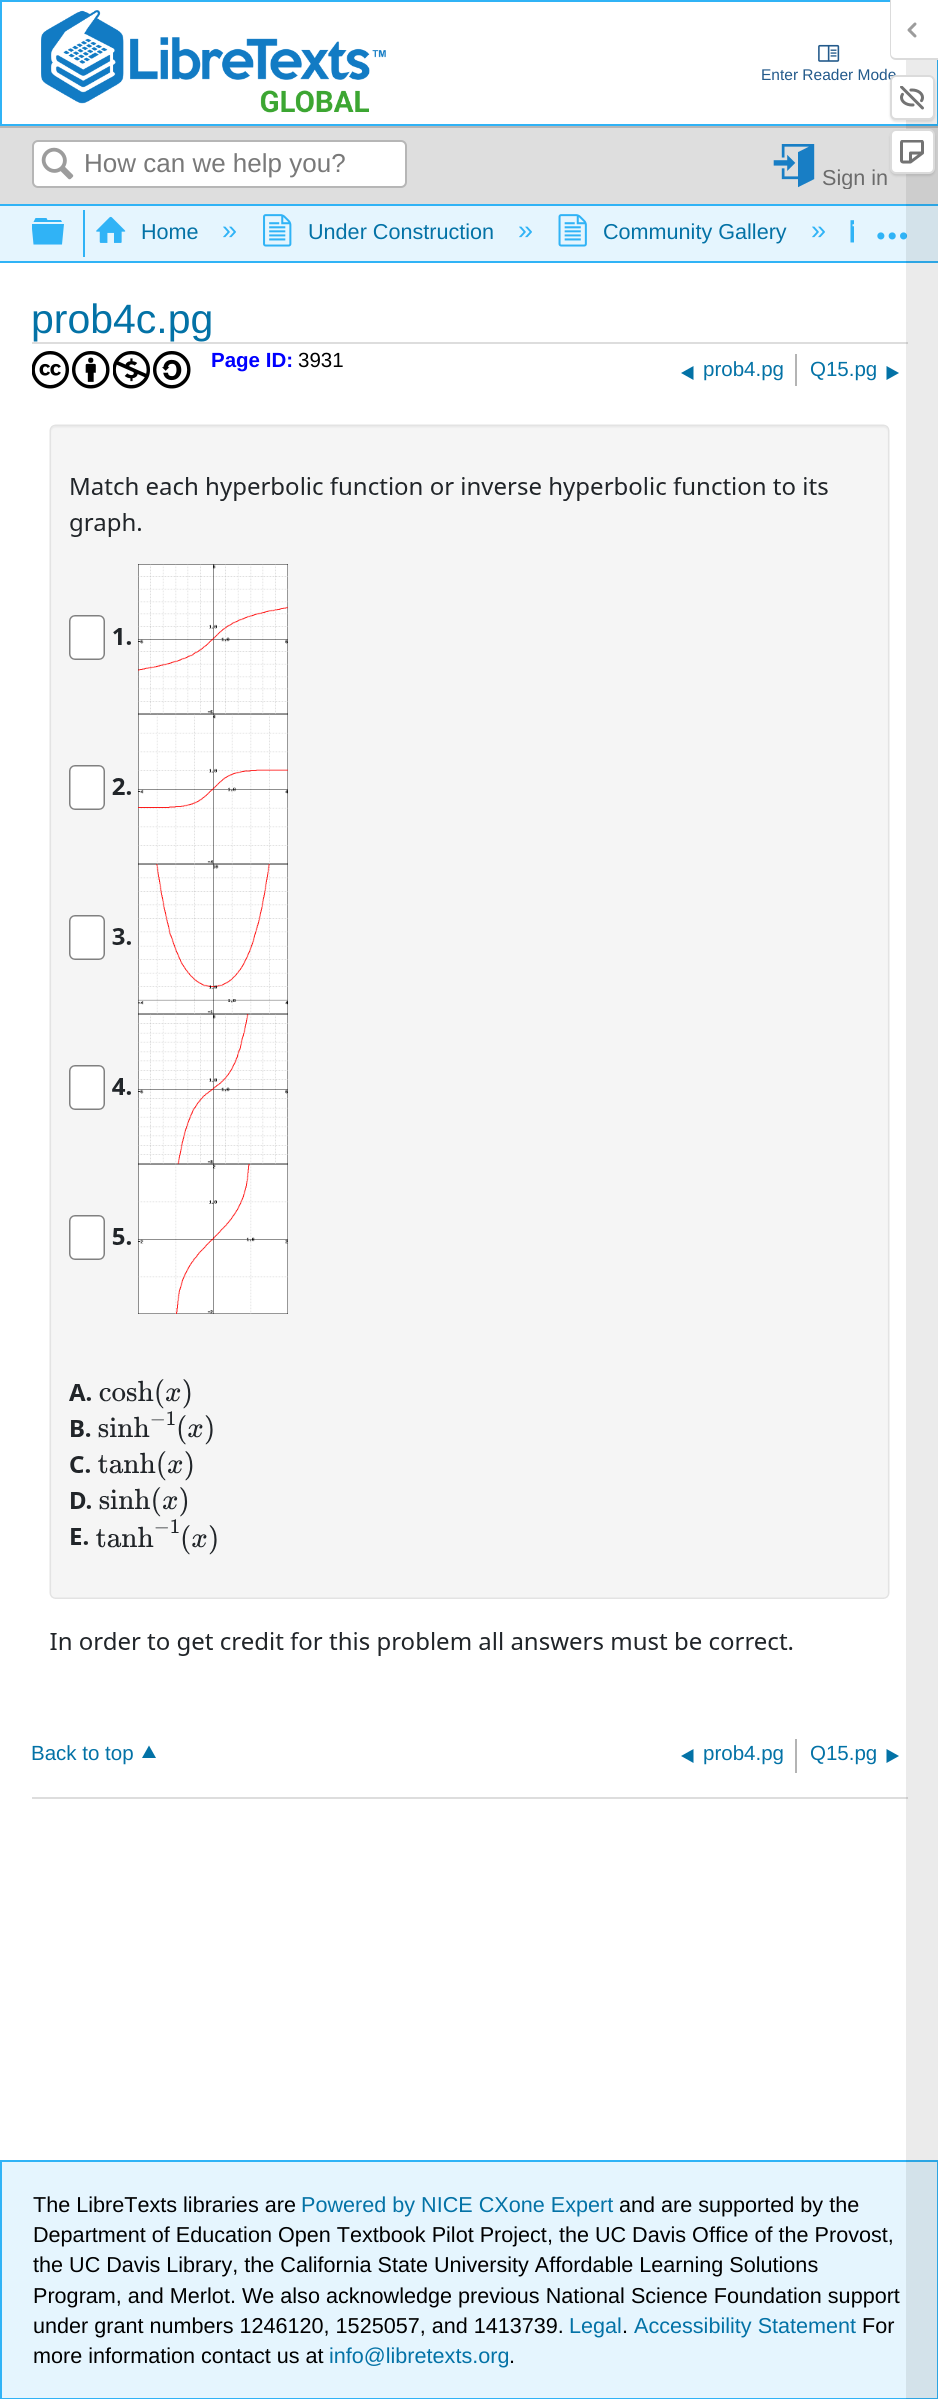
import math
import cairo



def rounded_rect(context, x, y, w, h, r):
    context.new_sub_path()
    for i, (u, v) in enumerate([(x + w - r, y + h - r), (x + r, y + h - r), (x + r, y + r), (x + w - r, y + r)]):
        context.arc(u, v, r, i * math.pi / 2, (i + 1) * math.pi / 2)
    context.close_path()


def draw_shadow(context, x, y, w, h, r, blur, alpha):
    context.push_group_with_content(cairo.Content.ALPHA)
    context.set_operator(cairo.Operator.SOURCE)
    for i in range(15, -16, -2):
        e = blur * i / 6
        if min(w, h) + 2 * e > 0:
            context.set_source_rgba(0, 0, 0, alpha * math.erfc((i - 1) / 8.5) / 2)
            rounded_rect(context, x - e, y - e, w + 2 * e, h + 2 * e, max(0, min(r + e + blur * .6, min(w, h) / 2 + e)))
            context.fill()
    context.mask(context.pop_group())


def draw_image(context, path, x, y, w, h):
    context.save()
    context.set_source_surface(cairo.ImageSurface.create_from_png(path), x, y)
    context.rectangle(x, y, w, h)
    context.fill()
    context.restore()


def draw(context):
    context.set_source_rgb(1, 1, 1)
    context.paint()
    context.rectangle(1, 1, 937, 124)
    context.set_source_rgb(48 / 255, 179 / 255, 246 / 255)
    context.stroke()
    draw_image(context, "images/1.png", 41, 10, 345, 103)
    draw_image(context, "images/2.png", 818, 44, 22, 18)
    context.set_source_rgb(222 / 255, 222 / 255, 222 / 255)
    context.rectangle(0, 128, 938, 76)
    context.fill()
    context.set_source_rgb(182 / 255, 182 / 255, 182 / 255)
    context.rectangle(0, 126, 938, 2)
    context.fill()
    context.set_source_rgb(1, 1, 1)
    rounded_rect(context, 33, 141, 373, 46, 5)
    context.fill_preserve()
    context.set_source_rgb(182 / 255, 182 / 255, 182 / 255)
    context.stroke()
    draw_image(context, "images/3.png", 41, 147, 33, 33)
    draw_image(context, "images/4.png", 773, 144, 42, 44)
    context.set_source_rgb(229 / 255, 245 / 255, 254 / 255)
    context.rectangle(0, 206, 938, 55)
    context.fill()
    context.set_source_rgb(48 / 255, 179 / 255, 246 / 255)
    context.rectangle(0, 204, 938, 2)
    context.fill()
    context.rectangle(0, 261, 938, 2)
    context.fill()
    context.set_fill_rule(cairo.FillRule.EVEN_ODD)
    context.new_path()
    context.move_to(32, 229)
    context.line_to(32, 224)
    context.line_to(64, 224)
    context.line_to(62, 244.5)
    context.line_to(33.5, 244.5)
    context.close_path()
    context.move_to(61, 220)
    context.line_to(47.5, 220)
    context.line_to(46.5, 218)
    context.line_to(35.5, 218)
    context.line_to(33.5, 222)
    context.line_to(62, 222)
    context.close_path()
    context.fill()
    context.rectangle(83, 210, 2, 47)
    context.fill()
    draw_image(context, "images/5.png", 96, 216, 30, 27)
    draw_image(context, "images/6.png", 263, 214, 29, 33)
    draw_image(context, "images/7.png", 558, 214, 29, 33)
    draw_image(context, "images/8.png", 850, 220, 4, 23)
    draw_image(context, "images/9.png", 877, 232, 31, 8)
    context.set_source_rgb(221 / 255, 221 / 255, 221 / 255)
    context.rectangle(32, 342, 876, 2)
    context.fill()
    draw_image(context, "images/10.png", 32, 351, 37, 38)
    draw_image(context, "images/11.png", 72, 351, 38, 38)
    draw_image(context, "images/12.png", 113, 351, 37, 38)
    draw_image(context, "images/13.png", 153, 351, 38, 38)
    context.set_source_rgb(180 / 255, 180 / 255, 180 / 255)
    context.rectangle(795, 354, 2, 32)
    context.fill()
    context.set_source_rgb(3 / 255, 114 / 255, 166 / 255)
    context.set_fill_rule(cairo.FillRule.WINDING)
    context.new_path()
    context.move_to(693.5, 366)
    context.line_to(693.5, 380)
    context.line_to(681, 373)
    context.close_path()
    context.fill()
    context.new_path()
    context.move_to(886.5, 366)
    context.line_to(886.5, 380)
    context.line_to(899, 373)
    context.close_path()
    context.fill()
    draw_image(context, "images/14.png", 49, 424, 841, 1232)
    context.set_source_rgb(221 / 255, 221 / 255, 221 / 255)
    context.rectangle(32, 1797, 876, 2)
    context.fill()
    context.set_source_rgb(3 / 255, 114 / 255, 166 / 255)
    context.new_path()
    context.move_to(142, 1758)
    context.line_to(156, 1758)
    context.line_to(149, 1745.5)
    context.close_path()
    context.fill()
    context.set_source_rgb(180 / 255, 180 / 255, 180 / 255)
    context.rectangle(795, 1739, 2, 34)
    context.fill()
    context.set_source_rgb(3 / 255, 114 / 255, 166 / 255)
    context.new_path()
    context.move_to(693.5, 1749)
    context.line_to(693.5, 1763)
    context.line_to(681, 1756)
    context.close_path()
    context.fill()
    context.new_path()
    context.move_to(886.5, 1749)
    context.line_to(886.5, 1763)
    context.line_to(899, 1756)
    context.close_path()
    context.fill()
    context.set_source_rgb(229 / 255, 245 / 255, 254 / 255)
    context.rectangle(1, 2161, 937, 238)
    context.fill_preserve()
    context.set_source_rgb(48 / 255, 179 / 255, 246 / 255)
    context.stroke()
    context.set_source_rgba(0, 0, 0, 0.08)
    context.rectangle(906, 60, 32, 2339)
    context.fill()
    context.set_source_rgb(1, 1, 1)
    context.new_path()
    context.move_to(891, 0)
    context.line_to(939, 0)
    context.line_to(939, 59)
    context.line_to(896, 59)
    context.curve_to(893, 59, 891, 57, 891, 54)
    context.close_path()
    context.fill()
    context.set_source_rgb(219 / 255, 219 / 255, 219 / 255)
    context.set_fill_rule(cairo.FillRule.EVEN_ODD)
    context.new_path()
    context.move_to(890, 0)
    context.line_to(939, 0)
    context.line_to(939, 60)
    context.line_to(896, 60)
    context.curve_to(892, 60, 890, 57, 890, 54)
    context.close_path()
    context.move_to(891, 0)
    context.line_to(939, 0)
    context.line_to(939, 58)
    context.line_to(896, 58)
    context.curve_to(893, 58, 891, 56, 891, 54)
    context.close_path()
    context.fill()
    draw_image(context, "images/15.png", 907, 22, 10, 16)
    context.set_source_rgb(0, 0, 0)
    draw_shadow(context, 890, 77, 45, 45, 6, 1, 0.1)
    draw_shadow(context, 890, 131, 45, 45, 6, 1, 0.1)
    context.set_source_rgb(1, 1, 1)
    rounded_rect(context, 891, 130, 43, 43, 5)
    context.fill_preserve()
    context.set_source_rgb(219 / 255, 219 / 255, 219 / 255)
    context.stroke()
    draw_image(context, "images/17.png", 900, 140, 24, 24)
    context.select_font_face("Liberation Sans")
    context.set_font_size(15.5)
    context.set_source_rgb(35 / 255, 90 / 255, 139 / 255)
    context.move_to(761, 80)
    context.show_text("Enter Reader Mode")
    context.set_font_size(26)
    context.set_source_rgb(121 / 255, 121 / 255, 121 / 255)
    context.move_to(84, 172)
    context.show_text("How can we help you?")
    context.save()
    context.set_fill_rule(cairo.FillRule.WINDING)
    context.rectangle(771, 143, 126, 46)
    context.clip()
    context.set_font_size(21.6)
    context.set_source_rgb(107 / 255, 107 / 255, 107 / 255)
    context.move_to(822, 185)
    context.show_text("Sign in")
    context.restore()
    context.set_font_size(21.6)
    context.set_source_rgb(3 / 255, 114 / 255, 166 / 255)
    context.move_to(141, 239)
    context.show_text("Home")
    context.set_font_size(27)
    context.set_source_rgb(48 / 255, 179 / 255, 246 / 255)
    context.move_to(222, 239)
    context.show_text("»")
    context.set_font_size(21.6)
    context.set_source_rgb(3 / 255, 114 / 255, 166 / 255)
    context.move_to(308, 239)
    context.show_text("Under Construction")
    context.set_font_size(27)
    context.set_source_rgb(48 / 255, 179 / 255, 246 / 255)
    context.move_to(518, 239)
    context.show_text("»")
    context.set_font_size(21.6)
    context.set_source_rgb(3 / 255, 114 / 255, 166 / 255)
    context.move_to(603, 239)
    context.show_text("Community Gallery")
    context.set_font_size(27)
    context.set_source_rgb(48 / 255, 179 / 255, 246 / 255)
    context.move_to(811, 239)
    context.show_text("»")
    context.set_font_size(41)
    context.set_source_rgb(3 / 255, 114 / 255, 166 / 255)
    context.move_to(31, 333)
    context.show_text("prob4c.pg")
    context.select_font_face("Liberation Sans", cairo.FontSlant.NORMAL, cairo.FontWeight.BOLD)
    context.set_font_size(20.5)
    context.set_source_rgb(0, 0, 1)
    context.move_to(211, 367)
    context.show_text("Page ID:")
    context.select_font_face("Liberation Sans")
    context.set_source_rgb(0, 0, 0)
    context.move_to(298, 367)
    context.show_text("3931")
    context.set_source_rgb(3 / 255, 114 / 255, 166 / 255)
    context.move_to(703, 376)
    context.show_text("prob4.pg")
    context.move_to(810, 376)
    context.show_text("Q15.pg")
    context.move_to(31, 1760)
    context.show_text("Back to top")
    context.move_to(703, 1760)
    context.show_text("prob4.pg")
    context.move_to(810, 1760)
    context.show_text("Q15.pg")
    context.set_font_size(21.6)
    context.set_source_rgb(0, 0, 0)
    context.move_to(33, 2212)
    context.show_text("The LibreTexts libraries are")
    context.set_source_rgb(3 / 255, 114 / 255, 166 / 255)
    context.move_to(301, 2212)
    context.show_text("Powered by NICE CXone Expert")
    context.set_source_rgb(0, 0, 0)
    context.move_to(619, 2212)
    context.show_text("and are supported by the")
    context.move_to(33, 2242)
    context.show_text("Department of Education Open Textbook Pilot Project, the UC Davis Office of the Provost,")
    context.move_to(33, 2272)
    context.show_text("the UC Davis Library, the California State University Affordable Learning Solutions")
    context.move_to(33, 2303)
    context.show_text("Program, and Merlot. We also acknowledge previous National Science Foundation support")
    context.move_to(33, 2333)
    context.show_text("under grant numbers 1246120, 1525057, and 1413739.")
    context.set_source_rgb(3 / 255, 114 / 255, 166 / 255)
    context.move_to(569, 2333)
    context.show_text("Legal")
    context.set_source_rgb(0, 0, 0)
    context.move_to(622, 2333)
    context.show_text(".")
    context.set_source_rgb(3 / 255, 114 / 255, 166 / 255)
    context.move_to(634, 2333)
    context.show_text("Accessibility Statement")
    context.set_source_rgb(0, 0, 0)
    context.move_to(862, 2333)
    context.show_text("For")
    context.move_to(33, 2363)
    context.show_text("more information contact us at")
    context.set_source_rgb(3 / 255, 114 / 255, 166 / 255)
    context.move_to(329, 2363)
    context.show_text("info@libretexts.org")
    context.set_source_rgb(0, 0, 0)
    context.move_to(509, 2363)
    context.show_text(".")
    context.set_source_rgb(1, 1, 1)
    rounded_rect(context, 891, 76, 43, 43, 5)
    context.fill_preserve()
    context.set_source_rgb(219 / 255, 219 / 255, 219 / 255)
    context.stroke()
    draw_image(context, "images/16.png", 900, 86, 24, 24)


surface = cairo.ImageSurface(cairo.Format.RGB24, 938, 2399)
context = cairo.Context(surface)
options = cairo.FontOptions()
options.set_hint_metrics(cairo.HintMetrics.OFF)
options.set_hint_style(cairo.HintStyle.NONE)
context.set_font_options(options)
context.set_miter_limit(4)
draw(context)
surface.write_to_png("out.png")
